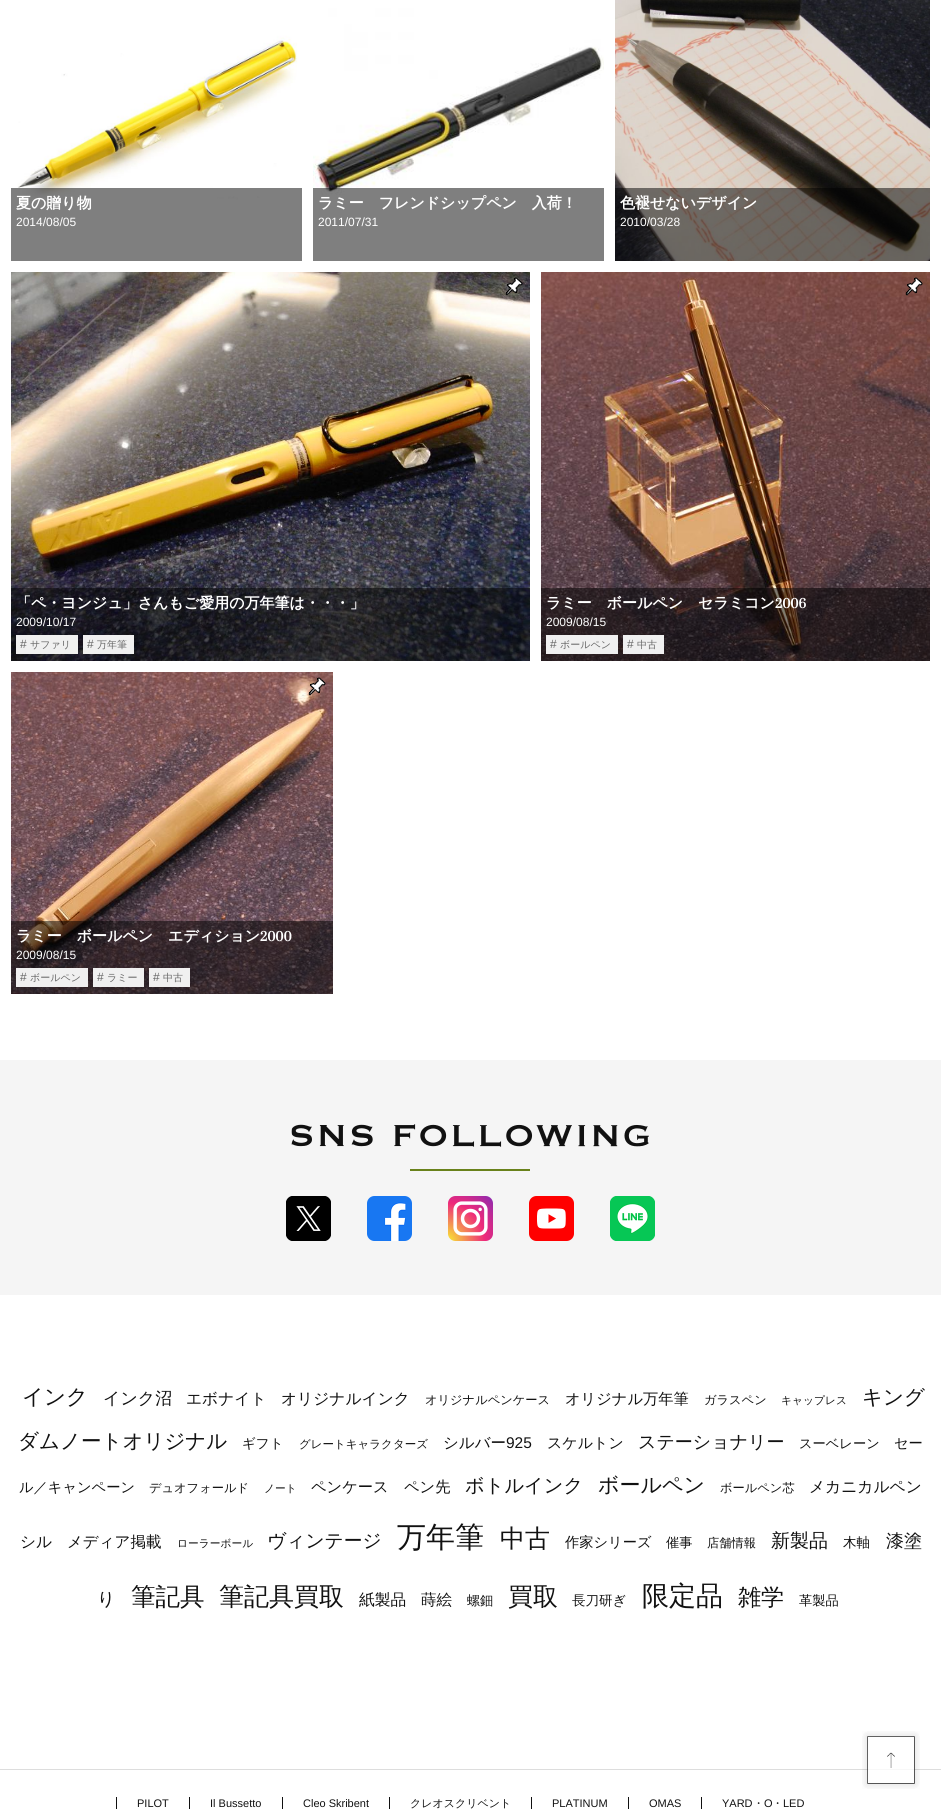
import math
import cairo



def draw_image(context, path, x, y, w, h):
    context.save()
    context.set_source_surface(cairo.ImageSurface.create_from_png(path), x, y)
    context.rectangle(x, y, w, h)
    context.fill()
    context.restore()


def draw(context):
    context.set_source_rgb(1, 1, 1)
    context.paint()
    draw_image(context, "images/1.png", 11, 0, 291, 261)
    context.set_source_rgba(0, 0, 0, 0.5)
    context.rectangle(11, 188, 291, 73)
    context.fill()
    draw_image(context, "images/2.png", 313, 0, 291, 261)
    context.rectangle(313, 188, 291, 73)
    context.fill()
    draw_image(context, "images/3.png", 615, 0, 315, 261)
    context.rectangle(615, 188, 315, 73)
    context.fill()
    draw_image(context, "images/4.png", 11, 272, 519, 389)
    draw_image(context, "images/5.png", 505, 277, 18, 19)
    context.rectangle(11, 588, 519, 73)
    context.fill()
    context.set_source_rgb(240 / 255, 240 / 255, 240 / 255)
    context.rectangle(16, 635, 62, 19)
    context.fill()
    context.rectangle(83, 635, 51, 19)
    context.fill()
    draw_image(context, "images/6.png", 541, 272, 389, 389)
    draw_image(context, "images/7.png", 905, 277, 18, 19)
    context.set_source_rgba(0, 0, 0, 0.5)
    context.rectangle(541, 588, 389, 73)
    context.fill()
    context.set_source_rgb(240 / 255, 240 / 255, 240 / 255)
    context.rectangle(546, 635, 72, 19)
    context.fill()
    context.rectangle(623, 635, 41, 19)
    context.fill()
    draw_image(context, "images/8.png", 11, 672, 322, 322)
    draw_image(context, "images/9.png", 308, 677, 18, 19)
    context.set_source_rgba(0, 0, 0, 0.5)
    context.rectangle(11, 921, 322, 73)
    context.fill()
    context.set_source_rgb(240 / 255, 240 / 255, 240 / 255)
    context.rectangle(16, 968, 72, 19)
    context.fill()
    context.rectangle(93, 968, 51, 19)
    context.fill()
    context.rectangle(149, 968, 41, 19)
    context.fill()
    context.set_source_rgb(245 / 255, 245 / 255, 245 / 255)
    context.rectangle(0, 1060, 941, 235)
    context.fill()
    draw_image(context, "images/10.png", 291, 1124, 358, 23)
    context.set_source_rgb(105 / 255, 130 / 255, 27 / 255)
    context.rectangle(410, 1169, 120, 2)
    context.fill()
    draw_image(context, "images/11.png", 286, 1196, 45, 45)
    draw_image(context, "images/12.png", 367, 1196, 45, 45)
    draw_image(context, "images/13.png", 448, 1196, 45, 45)
    draw_image(context, "images/14.png", 529, 1196, 45, 45)
    draw_image(context, "images/15.png", 610, 1196, 45, 45)
    context.set_source_rgb(221 / 255, 221 / 255, 221 / 255)
    context.rectangle(0, 1769, 941, 1)
    context.fill()
    context.set_source_rgb(17 / 255, 17 / 255, 17 / 255)
    context.rectangle(116, 1797, 1, 12)
    context.fill()
    context.rectangle(189, 1797, 1, 12)
    context.fill()
    context.rectangle(282, 1797, 1, 12)
    context.fill()
    context.rectangle(389, 1797, 1, 12)
    context.fill()
    context.rectangle(531, 1797, 1, 12)
    context.fill()
    context.rectangle(628, 1797, 1, 12)
    context.fill()
    context.rectangle(701, 1797, 1, 12)
    context.fill()
    draw_image(context, "images/16.png", 862, 1731, 58, 58)
    context.select_font_face("WenQuanYi Zen Hei", cairo.FontSlant.NORMAL, cairo.FontWeight.BOLD)
    context.set_font_size(15)
    context.set_source_rgb(1, 1, 1)
    context.move_to(16, 208)
    context.show_text("夏の贈り物")
    context.select_font_face("Liberation Sans")
    context.set_font_size(12)
    context.move_to(16, 226)
    context.show_text("2014/08/05")
    context.select_font_face("WenQuanYi Zen Hei", cairo.FontSlant.NORMAL, cairo.FontWeight.BOLD)
    context.set_font_size(15)
    context.move_to(318, 208)
    context.show_text("ラミー　フレンドシップペン　入荷！")
    context.select_font_face("Liberation Sans")
    context.set_font_size(12)
    context.move_to(318, 226)
    context.show_text("2011/07/31")
    context.select_font_face("WenQuanYi Zen Hei", cairo.FontSlant.NORMAL, cairo.FontWeight.BOLD)
    context.set_font_size(15)
    context.move_to(620, 208)
    context.show_text("色褪せないデザイン")
    context.select_font_face("Liberation Sans")
    context.set_font_size(12)
    context.move_to(620, 226)
    context.show_text("2010/03/28")
    context.select_font_face("WenQuanYi Zen Hei", cairo.FontSlant.NORMAL, cairo.FontWeight.BOLD)
    context.set_font_size(15)
    context.move_to(16, 608)
    context.show_text("「ペ・ヨンジュ」さんもご愛用の万年筆は・・・」")
    context.select_font_face("Liberation Sans")
    context.set_font_size(12)
    context.move_to(16, 626)
    context.show_text("2009/10/17")
    context.set_source_rgb(102 / 255, 102 / 255, 102 / 255)
    context.move_to(20, 648)
    context.show_text("#")
    context.select_font_face("WenQuanYi Zen Hei Medium")
    context.set_font_size(10)
    context.move_to(30, 648)
    context.show_text("サファリ")
    context.select_font_face("Liberation Sans")
    context.set_font_size(12)
    context.move_to(87, 648)
    context.show_text("#")
    context.select_font_face("WenQuanYi Zen Hei Medium")
    context.set_font_size(10)
    context.move_to(97, 648)
    context.show_text("万年筆")
    context.select_font_face("WenQuanYi Zen Hei", cairo.FontSlant.NORMAL, cairo.FontWeight.BOLD)
    context.set_font_size(15)
    context.set_source_rgb(1, 1, 1)
    context.move_to(546, 608)
    context.show_text("ラミー　ボールペン　セラミコン")
    context.select_font_face("Suranna", cairo.FontSlant.NORMAL, cairo.FontWeight.BOLD)
    context.move_to(775, 608)
    context.show_text("2006")
    context.select_font_face("Liberation Sans")
    context.set_font_size(12)
    context.move_to(546, 626)
    context.show_text("2009/08/15")
    context.set_source_rgb(102 / 255, 102 / 255, 102 / 255)
    context.move_to(550, 648)
    context.show_text("#")
    context.select_font_face("WenQuanYi Zen Hei Medium")
    context.set_font_size(10)
    context.move_to(560, 648)
    context.show_text("ボールペン")
    context.select_font_face("Liberation Sans")
    context.set_font_size(12)
    context.move_to(627, 648)
    context.show_text("#")
    context.select_font_face("WenQuanYi Zen Hei Medium")
    context.set_font_size(10)
    context.move_to(637, 648)
    context.show_text("中古")
    context.select_font_face("WenQuanYi Zen Hei", cairo.FontSlant.NORMAL, cairo.FontWeight.BOLD)
    context.set_font_size(15)
    context.set_source_rgb(1, 1, 1)
    context.move_to(16, 941)
    context.show_text("ラミー　ボールペン　エディション")
    context.select_font_face("Suranna", cairo.FontSlant.NORMAL, cairo.FontWeight.BOLD)
    context.move_to(260, 941)
    context.show_text("2000")
    context.select_font_face("Liberation Sans")
    context.set_font_size(12)
    context.move_to(16, 959)
    context.show_text("2009/08/15")
    context.set_source_rgb(102 / 255, 102 / 255, 102 / 255)
    context.move_to(20, 981)
    context.show_text("#")
    context.select_font_face("WenQuanYi Zen Hei Medium")
    context.set_font_size(10)
    context.move_to(30, 981)
    context.show_text("ボールペン")
    context.select_font_face("Liberation Sans")
    context.set_font_size(12)
    context.move_to(97, 981)
    context.show_text("#")
    context.select_font_face("WenQuanYi Zen Hei Medium")
    context.set_font_size(10)
    context.move_to(107, 981)
    context.show_text("ラミー")
    context.select_font_face("Liberation Sans")
    context.set_font_size(12)
    context.move_to(153, 981)
    context.show_text("#")
    context.select_font_face("WenQuanYi Zen Hei Medium")
    context.set_font_size(10)
    context.move_to(163, 981)
    context.show_text("中古")
    context.set_font_size(21.5)
    context.set_source_rgb(17 / 255, 17 / 255, 17 / 255)
    context.move_to(22, 1404)
    context.show_text("インク")
    context.set_font_size(17)
    context.move_to(103, 1404)
    context.show_text("インク沼")
    context.set_font_size(15.75)
    context.move_to(186, 1404)
    context.show_text("エボナイト")
    context.move_to(281, 1404)
    context.show_text("オリジナルインク")
    context.set_font_size(12.25)
    context.move_to(425, 1404)
    context.show_text("オリジナルペンケース")
    context.set_font_size(15.25)
    context.move_to(565, 1404)
    context.show_text("オリジナル万年筆")
    context.set_font_size(12.25)
    context.move_to(704, 1404)
    context.show_text("ガラスペン")
    context.set_font_size(10.75)
    context.move_to(781, 1404)
    context.show_text("キャップレス")
    context.set_font_size(20.5)
    context.move_to(862, 1404)
    context.show_text("キング")
    context.move_to(18, 1448)
    context.show_text("ダムノートオリジナル")
    context.set_font_size(13.5)
    context.move_to(242, 1448)
    context.show_text("ギフト")
    context.set_font_size(11.5)
    context.move_to(299, 1448)
    context.show_text("グレートキャラクターズ")
    context.set_font_size(15.5)
    context.move_to(443, 1448)
    context.show_text("シルバー")
    context.select_font_face("Liberation Sans")
    context.move_to(506, 1448)
    context.show_text("925")
    context.select_font_face("WenQuanYi Zen Hei Medium")
    context.set_font_size(15)
    context.move_to(547, 1448)
    context.show_text("スケルトン")
    context.set_font_size(18)
    context.move_to(638, 1448)
    context.show_text("ステーショナリー")
    context.set_font_size(13.25)
    context.move_to(799, 1448)
    context.show_text("スーベレーン")
    context.set_font_size(14.25)
    context.move_to(894, 1448)
    context.show_text("セー")
    context.move_to(19, 1492)
    context.show_text("ル／キャンペーン")
    context.set_font_size(12.25)
    context.move_to(149, 1492)
    context.show_text("デュオフォールド")
    context.set_font_size(10.75)
    context.move_to(264, 1492)
    context.show_text("ノート")
    context.set_font_size(15.25)
    context.move_to(311, 1492)
    context.show_text("ペンケース")
    context.move_to(404, 1492)
    context.show_text("ペン先")
    context.set_font_size(19.25)
    context.move_to(465, 1492)
    context.show_text("ボトルインク")
    context.set_font_size(21)
    context.move_to(598, 1492)
    context.show_text("ボールペン")
    context.set_font_size(12.25)
    context.move_to(720, 1492)
    context.show_text("ボールペン芯")
    context.set_font_size(15.75)
    context.move_to(809, 1492)
    context.show_text("メカニカルペン")
    context.move_to(20, 1547)
    context.show_text("シル")
    context.set_font_size(15.5)
    context.move_to(67, 1547)
    context.show_text("メディア掲載")
    context.set_font_size(10.75)
    context.move_to(177, 1547)
    context.show_text("ローラーボール")
    context.set_font_size(18.75)
    context.move_to(267, 1547)
    context.show_text("ヴィンテージ")
    context.set_font_size(29)
    context.move_to(397, 1547)
    context.show_text("万年筆")
    context.set_font_size(25)
    context.move_to(500, 1547)
    context.show_text("中古")
    context.set_font_size(14.25)
    context.move_to(565, 1547)
    context.show_text("作家シリーズ")
    context.set_font_size(13.25)
    context.move_to(666, 1547)
    context.show_text("催事")
    context.set_font_size(12.25)
    context.move_to(707, 1547)
    context.show_text("店舗情報")
    context.set_font_size(19)
    context.move_to(771, 1547)
    context.show_text("新製品")
    context.set_font_size(13.5)
    context.move_to(843, 1547)
    context.show_text("木軸")
    context.set_font_size(18)
    context.move_to(886, 1547)
    context.show_text("漆塗")
    context.move_to(97, 1605)
    context.show_text("り")
    context.set_font_size(24.5)
    context.move_to(131, 1605)
    context.show_text("筆記具")
    context.set_font_size(25)
    context.move_to(219, 1605)
    context.show_text("筆記具買取")
    context.set_font_size(15.75)
    context.move_to(359, 1605)
    context.show_text("紙製品")
    context.set_font_size(15.5)
    context.move_to(421, 1605)
    context.show_text("蒔絵")
    context.set_font_size(13)
    context.move_to(467, 1605)
    context.show_text("螺鈿")
    context.set_font_size(25)
    context.move_to(508, 1605)
    context.show_text("買取")
    context.set_font_size(13.5)
    context.move_to(572, 1605)
    context.show_text("長刀研ぎ")
    context.set_font_size(27)
    context.move_to(642, 1605)
    context.show_text("限定品")
    context.set_font_size(23)
    context.move_to(738, 1605)
    context.show_text("雑学")
    context.set_font_size(13.25)
    context.move_to(799, 1605)
    context.show_text("革製品")
    context.select_font_face("Liberation Sans")
    context.set_font_size(11)
    context.move_to(137, 1807)
    context.show_text("PILOT")
    context.move_to(210, 1807)
    context.show_text("Il Bussetto")
    context.move_to(303, 1807)
    context.show_text("Cleo Skribent")
    context.select_font_face("WenQuanYi Zen Hei Medium")
    context.move_to(410, 1807)
    context.show_text("クレオスクリベント")
    context.select_font_face("Liberation Sans")
    context.move_to(552, 1807)
    context.show_text("PLATINUM")
    context.move_to(649, 1807)
    context.show_text("OMAS")
    context.move_to(722, 1807)
    context.show_text("YARD")
    context.select_font_face("WenQuanYi Zen Hei Medium")
    context.move_to(753, 1807)
    context.show_text("・")
    context.select_font_face("Liberation Sans")
    context.move_to(764, 1807)
    context.show_text("O")
    context.select_font_face("WenQuanYi Zen Hei Medium")
    context.move_to(772, 1807)
    context.show_text("・")
    context.select_font_face("Liberation Sans")
    context.move_to(783, 1807)
    context.show_text("LED")


surface = cairo.ImageSurface(cairo.Format.RGB24, 941, 1810)
context = cairo.Context(surface)
options = cairo.FontOptions()
options.set_hint_metrics(cairo.HintMetrics.OFF)
options.set_hint_style(cairo.HintStyle.NONE)
context.set_font_options(options)
context.set_miter_limit(4)
draw(context)
surface.write_to_png("out.png")
